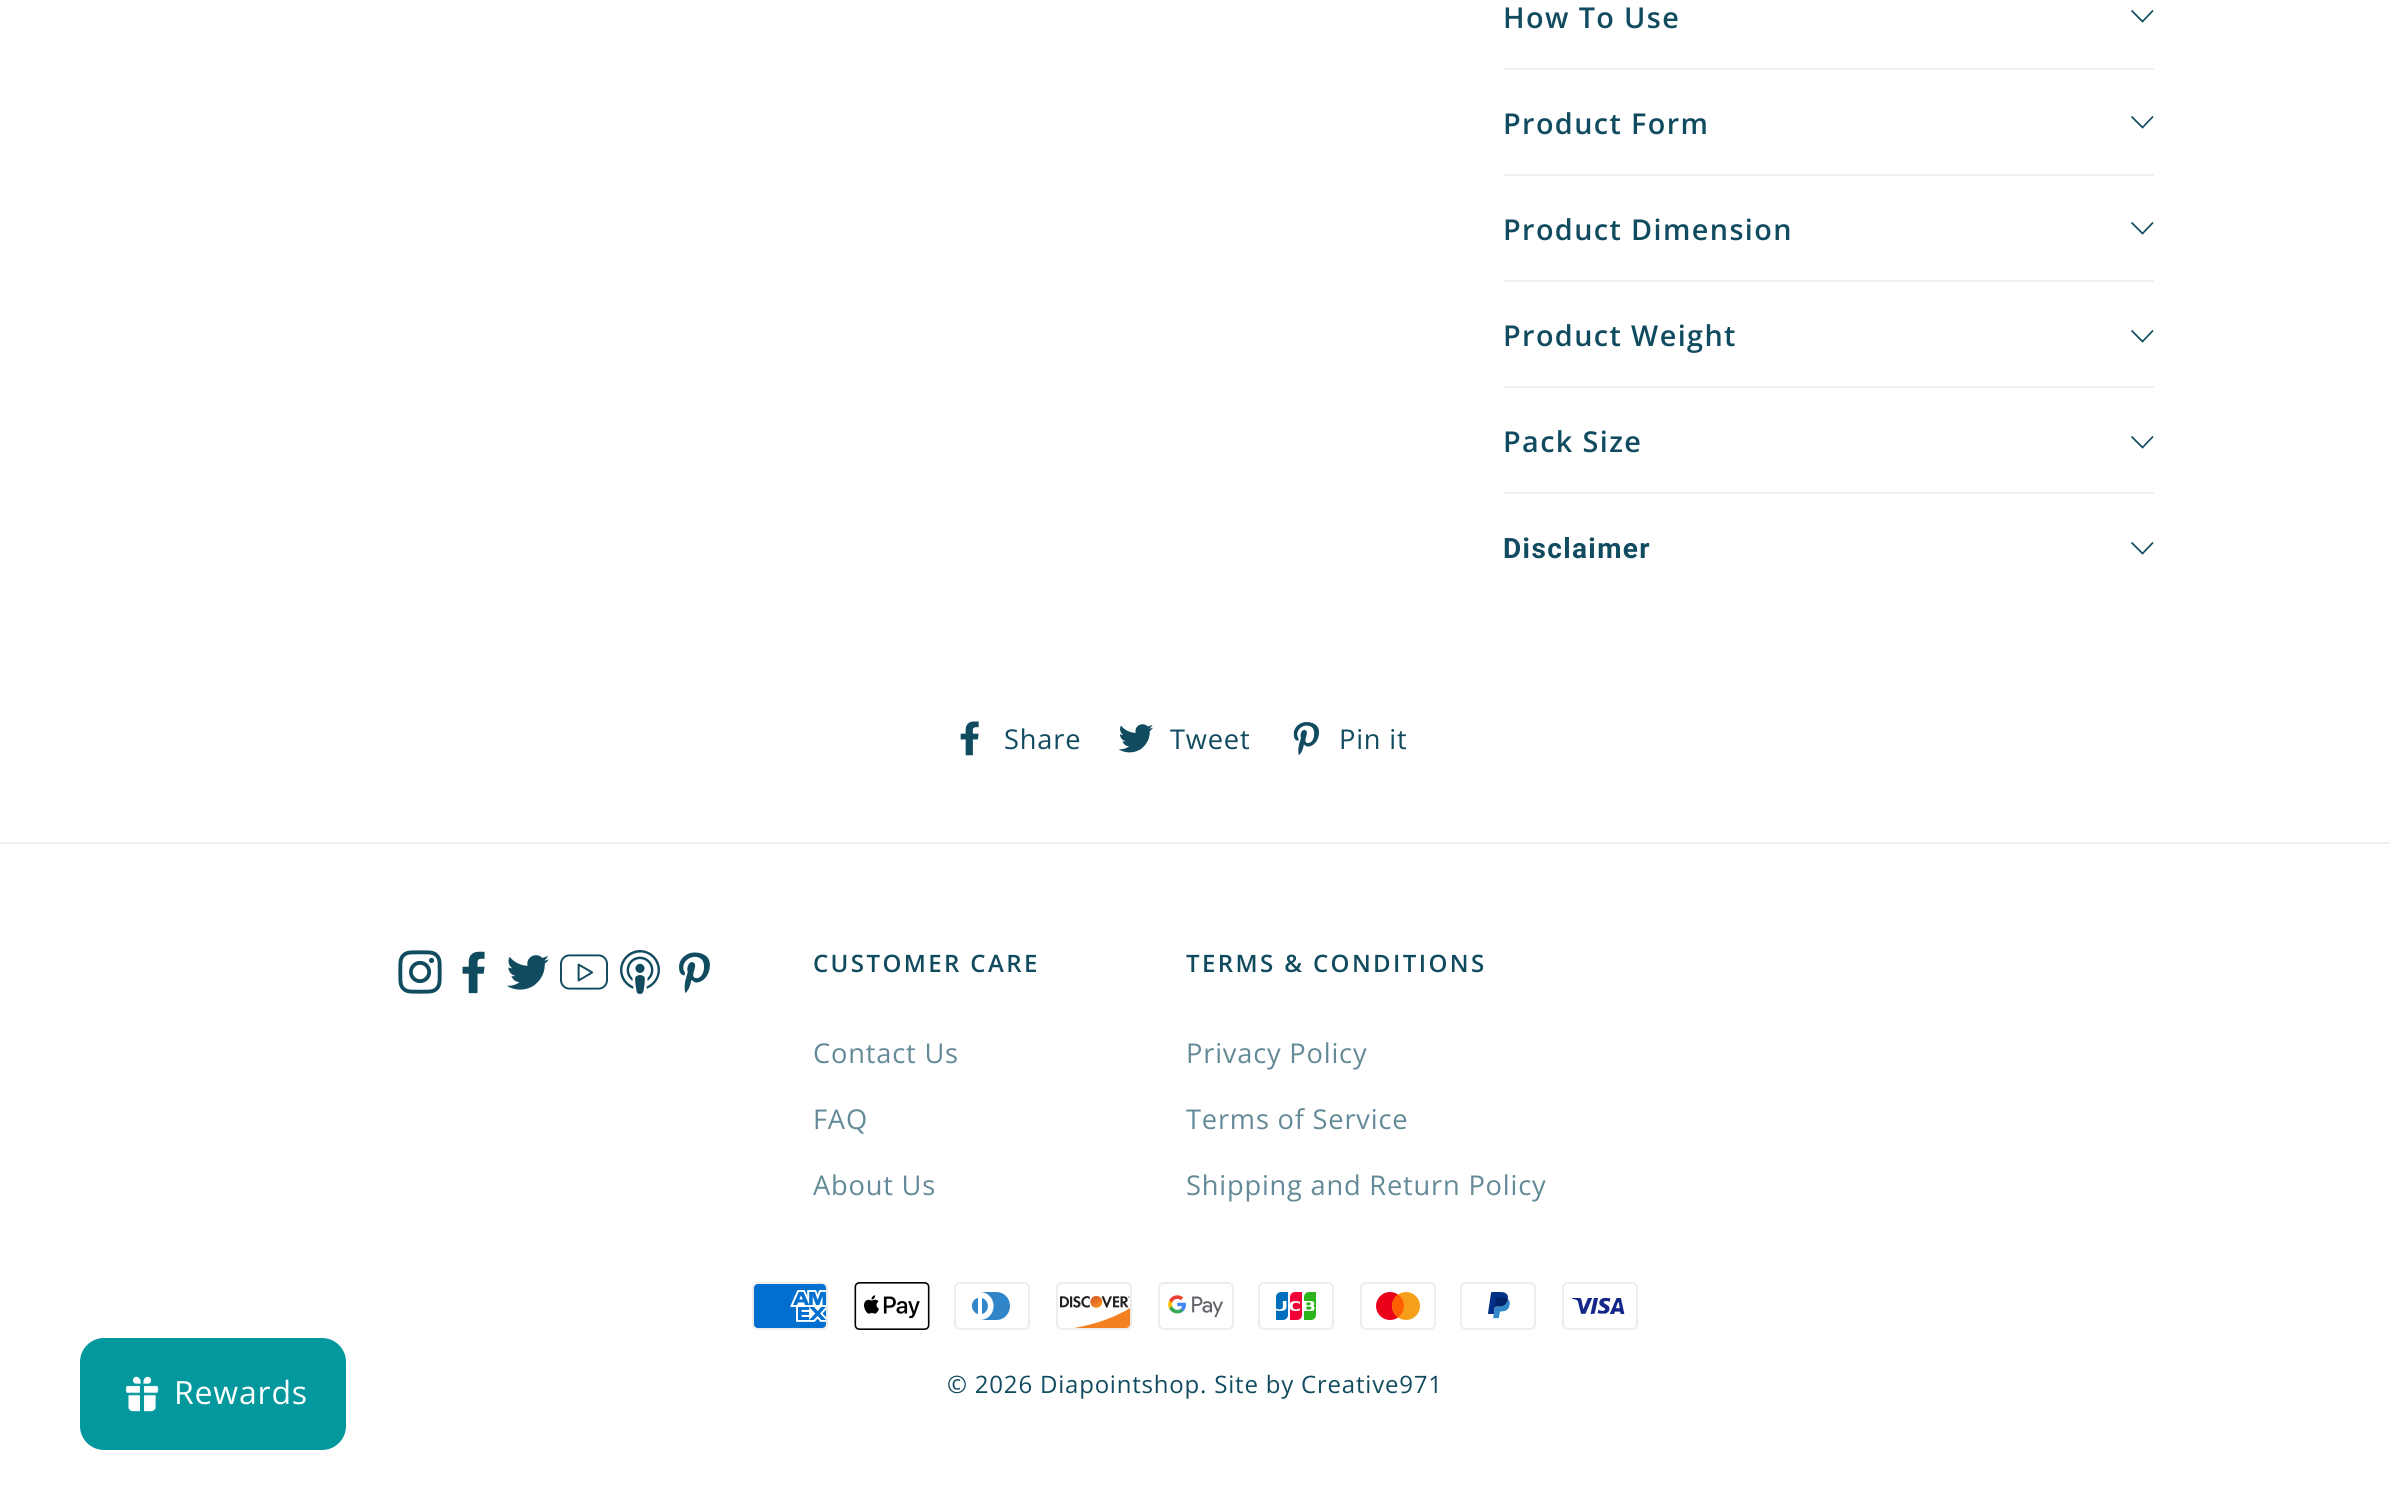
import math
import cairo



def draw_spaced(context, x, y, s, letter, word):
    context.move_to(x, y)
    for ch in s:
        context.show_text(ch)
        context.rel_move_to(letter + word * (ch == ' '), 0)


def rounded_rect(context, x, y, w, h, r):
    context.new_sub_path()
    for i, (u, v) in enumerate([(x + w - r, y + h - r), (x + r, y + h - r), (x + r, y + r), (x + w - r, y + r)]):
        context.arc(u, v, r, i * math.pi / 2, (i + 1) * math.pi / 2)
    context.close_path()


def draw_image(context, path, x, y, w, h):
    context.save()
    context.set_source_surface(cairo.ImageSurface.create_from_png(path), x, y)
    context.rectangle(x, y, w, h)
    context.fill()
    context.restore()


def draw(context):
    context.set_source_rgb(1, 1, 1)
    context.paint()
    context.set_source_rgb(3 / 255, 152 / 255, 158 / 255)
    rounded_rect(context, 80, 1338, 266, 112, 24)
    context.fill()
    draw_image(context, "images/1.png", 125, 1376, 34, 36)
    context.new_path()
    context.move_to(2131.5, 10.5)
    context.line_to(2142.5, 21.5)
    context.line_to(2153, 10.5)
    context.set_source_rgb(17 / 255, 75 / 255, 95 / 255)
    context.set_line_width(1.7)
    context.stroke()
    context.set_source_rgb(239 / 255, 239 / 255, 239 / 255)
    context.rectangle(1504, 68, 650, 2)
    context.fill()
    context.new_path()
    context.move_to(2131.5, 116.5)
    context.line_to(2142.5, 127.5)
    context.line_to(2153, 116.5)
    context.set_source_rgb(17 / 255, 75 / 255, 95 / 255)
    context.stroke()
    context.set_source_rgb(239 / 255, 239 / 255, 239 / 255)
    context.rectangle(1504, 174, 650, 2)
    context.fill()
    context.new_path()
    context.move_to(2131.5, 222.5)
    context.line_to(2142.5, 233.5)
    context.line_to(2153, 222.5)
    context.set_source_rgb(17 / 255, 75 / 255, 95 / 255)
    context.stroke()
    context.set_source_rgb(239 / 255, 239 / 255, 239 / 255)
    context.rectangle(1504, 280, 650, 2)
    context.fill()
    context.new_path()
    context.move_to(2131.5, 330.5)
    context.line_to(2142.5, 341.5)
    context.line_to(2153, 330.5)
    context.set_source_rgb(17 / 255, 75 / 255, 95 / 255)
    context.stroke()
    context.set_source_rgb(239 / 255, 239 / 255, 239 / 255)
    context.rectangle(1504, 386, 650, 2)
    context.fill()
    context.new_path()
    context.move_to(2131.5, 436.5)
    context.line_to(2142.5, 447.5)
    context.line_to(2153, 436.5)
    context.set_source_rgb(17 / 255, 75 / 255, 95 / 255)
    context.stroke()
    context.set_source_rgb(239 / 255, 239 / 255, 239 / 255)
    context.rectangle(1504, 492, 650, 2)
    context.fill()
    context.new_path()
    context.move_to(2131.5, 542.5)
    context.line_to(2142.5, 553.5)
    context.line_to(2153, 542.5)
    context.set_source_rgb(17 / 255, 75 / 255, 95 / 255)
    context.stroke()
    draw_image(context, "images/2.png", 960, 721, 19, 35)
    draw_image(context, "images/3.png", 1118, 724, 35, 29)
    draw_image(context, "images/4.png", 1293, 722, 26, 34)
    context.set_source_rgb(239 / 255, 239 / 255, 239 / 255)
    context.rectangle(0, 842, 2390, 2)
    context.fill()
    draw_image(context, "images/5.png", 398, 950, 44, 44)
    draw_image(context, "images/6.png", 462, 951, 23, 43)
    draw_image(context, "images/7.png", 507, 955, 42, 35)
    draw_image(context, "images/8.png", 560, 954, 48, 36)
    draw_image(context, "images/9.png", 620, 950, 40, 44)
    draw_image(context, "images/10.png", 679, 952, 31, 41)
    draw_image(context, "images/11.png", 752, 1282, 76, 48)
    draw_image(context, "images/12.png", 854, 1282, 76, 48)
    draw_image(context, "images/13.png", 954, 1282, 76, 48)
    draw_image(context, "images/14.png", 1056, 1282, 76, 48)
    draw_image(context, "images/15.png", 1158, 1282, 76, 48)
    draw_image(context, "images/16.png", 1258, 1282, 76, 48)
    draw_image(context, "images/17.png", 1360, 1282, 76, 48)
    draw_image(context, "images/18.png", 1460, 1282, 76, 48)
    draw_image(context, "images/19.png", 1562, 1282, 76, 48)
    context.select_font_face("Open Sans")
    context.set_font_size(32)
    context.set_source_rgb(1, 1, 1)
    draw_spaced(context, 174, 1404, "Rewards", 0.8, 0)
    context.select_font_face("Open Sans SemiBold")
    context.set_font_size(28.75)
    context.set_source_rgb(17 / 255, 75 / 255, 95 / 255)
    draw_spaced(context, 1503, 28, "How To Use", 1.4, 0)
    draw_spaced(context, 1503, 134, "Product Form", 1.4, 0)
    draw_spaced(context, 1503, 240, "Product Dimension", 1.4, 0)
    draw_spaced(context, 1503, 346, "Product Weight", 1.4, 0)
    draw_spaced(context, 1503, 452, "Pack Size", 1.4, 0)
    context.select_font_face("Roboto", cairo.FontSlant.NORMAL, cairo.FontWeight.BOLD)
    context.set_font_size(28)
    draw_spaced(context, 1503, 558, "Disclaimer", 1.4, 0)
    context.select_font_face("Open Sans")
    context.set_font_size(27.25)
    draw_spaced(context, 1004, 749, "Share", 0.8, 0)
    draw_spaced(context, 1170, 749, "Tweet", 0.8, 0)
    draw_spaced(context, 1339, 749, "Pin it", 0.8, 0)
    context.select_font_face("Open Sans SemiBold")
    context.set_font_size(24)
    draw_spaced(context, 813, 972, "CUSTOMER CARE", 2.4, 0)
    context.select_font_face("Open Sans")
    context.set_font_size(27.25)
    context.set_source_rgb(100 / 255, 138 / 255, 151 / 255)
    draw_spaced(context, 813, 1063, "Contact Us", 0.8, 0)
    draw_spaced(context, 813, 1129, "FAQ", 0.8, 0)
    draw_spaced(context, 813, 1195, "About Us", 0.8, 0)
    context.select_font_face("Open Sans SemiBold")
    context.set_font_size(24)
    context.set_source_rgb(17 / 255, 75 / 255, 95 / 255)
    draw_spaced(context, 1186, 972, "TERMS & CONDITIONS", 2.4, 0)
    context.select_font_face("Open Sans")
    context.set_font_size(27.25)
    context.set_source_rgb(100 / 255, 138 / 255, 151 / 255)
    draw_spaced(context, 1186, 1063, "Privacy Policy", 0.8, 0)
    draw_spaced(context, 1186, 1129, "Terms of Service", 0.8, 0)
    draw_spaced(context, 1186, 1195, "Shipping and Return Policy", 0.8, 0)
    context.set_font_size(24)
    context.set_source_rgb(17 / 255, 75 / 255, 95 / 255)
    draw_spaced(context, 947, 1393, "© 2026 Diapointshop. Site by Creative971", 0.8, 0)


surface = cairo.ImageSurface(cairo.Format.RGB24, 2390, 1498)
context = cairo.Context(surface)
options = cairo.FontOptions()
options.set_hint_metrics(cairo.HintMetrics.OFF)
options.set_hint_style(cairo.HintStyle.NONE)
context.set_font_options(options)
context.set_miter_limit(4)
draw(context)
surface.write_to_png("out.png")
